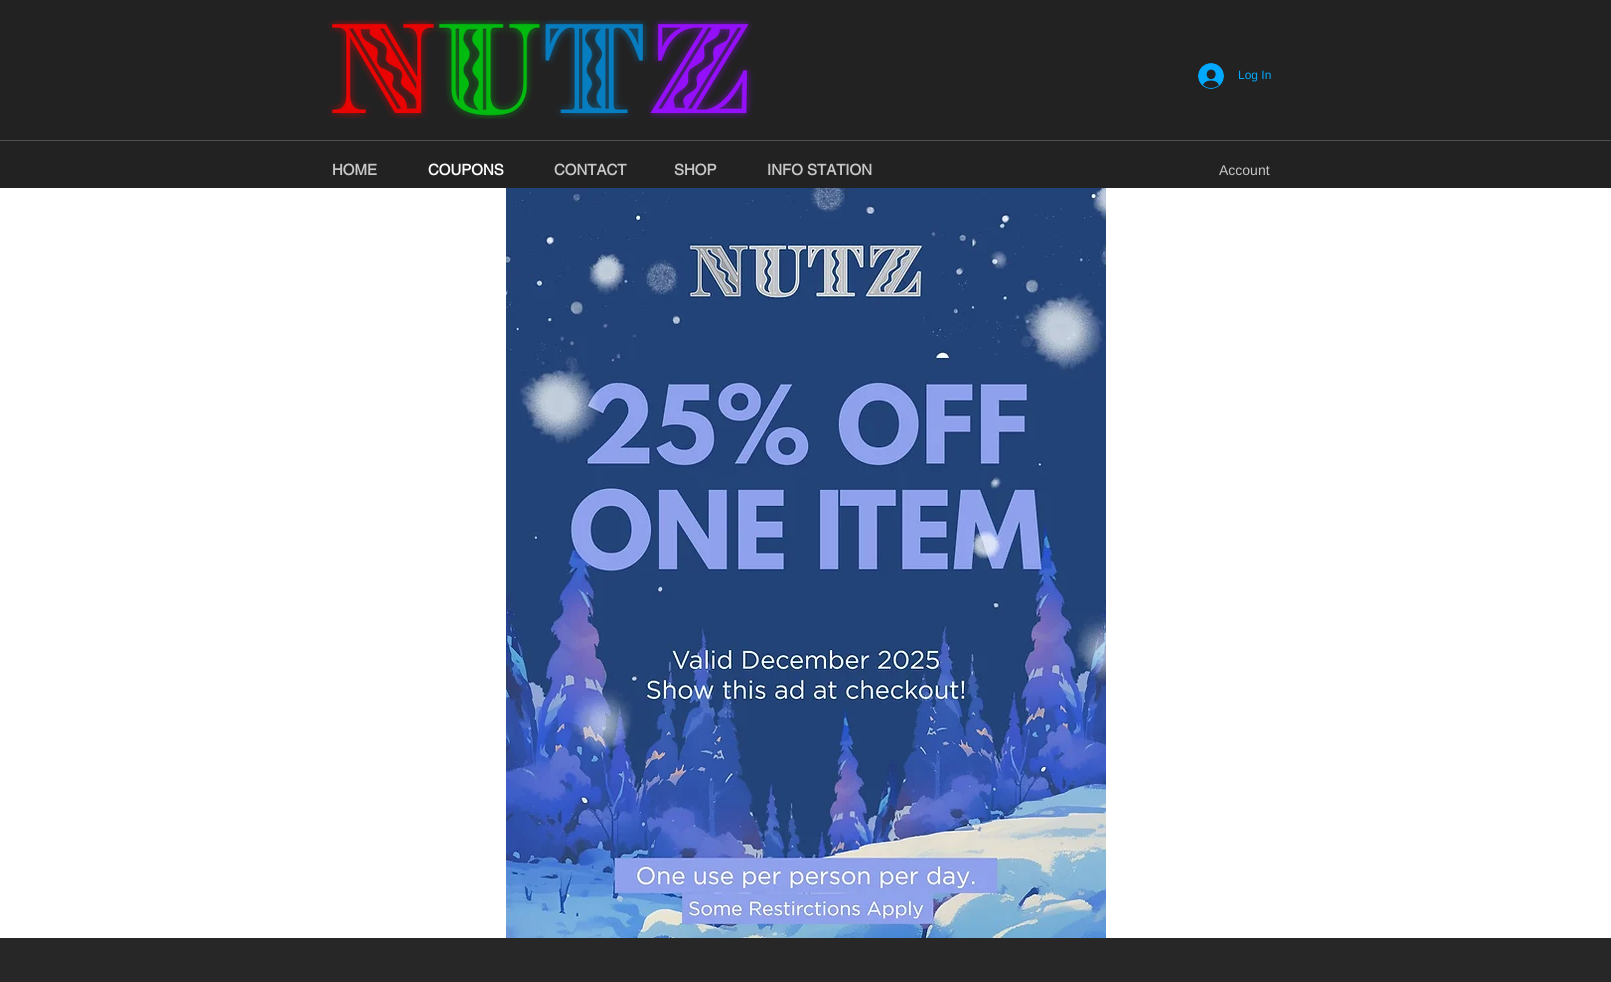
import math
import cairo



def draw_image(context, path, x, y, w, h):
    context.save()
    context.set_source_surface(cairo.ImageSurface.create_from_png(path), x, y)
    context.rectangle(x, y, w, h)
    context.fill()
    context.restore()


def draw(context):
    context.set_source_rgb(1, 1, 1)
    context.paint()
    context.set_source_rgb(34 / 255, 34 / 255, 34 / 255)
    context.rectangle(0, 0, 1611, 188)
    context.fill()
    draw_image(context, "images/1.png", 327, 20, 426, 99)
    draw_image(context, "images/2.png", 1198, 63, 26, 26)
    context.set_source_rgb(78 / 255, 78 / 255, 78 / 255)
    context.rectangle(0, 140, 1611, 1)
    context.fill()
    draw_image(context, "images/3.png", 506, 188, 600, 750)
    context.set_source_rgb(39 / 255, 39 / 255, 39 / 255)
    context.rectangle(0, 938, 1611, 44)
    context.fill()
    context.select_font_face("Liberation Sans")
    context.set_font_size(12)
    context.set_source_rgb(0, 169 / 255, 1)
    context.move_to(1238, 79)
    context.show_text("Log In")
    context.select_font_face("helvetica", cairo.FontSlant.NORMAL, cairo.FontWeight.BOLD)
    context.set_font_size(15)
    context.set_source_rgb(199 / 255, 199 / 255, 199 / 255)
    context.move_to(332, 175)
    context.show_text("HOME")
    context.set_source_rgb(1, 1, 1)
    context.move_to(428, 175)
    context.show_text("COUPONS")
    context.set_source_rgb(199 / 255, 199 / 255, 199 / 255)
    context.move_to(554, 175)
    context.show_text("CONTACT")
    context.move_to(674, 175)
    context.show_text("SHOP")
    context.move_to(767, 175)
    context.show_text("INFO STATION")
    context.select_font_face("Liberation Sans")
    context.set_font_size(14)
    context.move_to(1219, 175)
    context.show_text("Account")


surface = cairo.ImageSurface(cairo.Format.RGB24, 1611, 982)
context = cairo.Context(surface)
options = cairo.FontOptions()
options.set_hint_metrics(cairo.HintMetrics.OFF)
options.set_hint_style(cairo.HintStyle.NONE)
context.set_font_options(options)
context.set_miter_limit(4)
draw(context)
surface.write_to_png("out.png")
